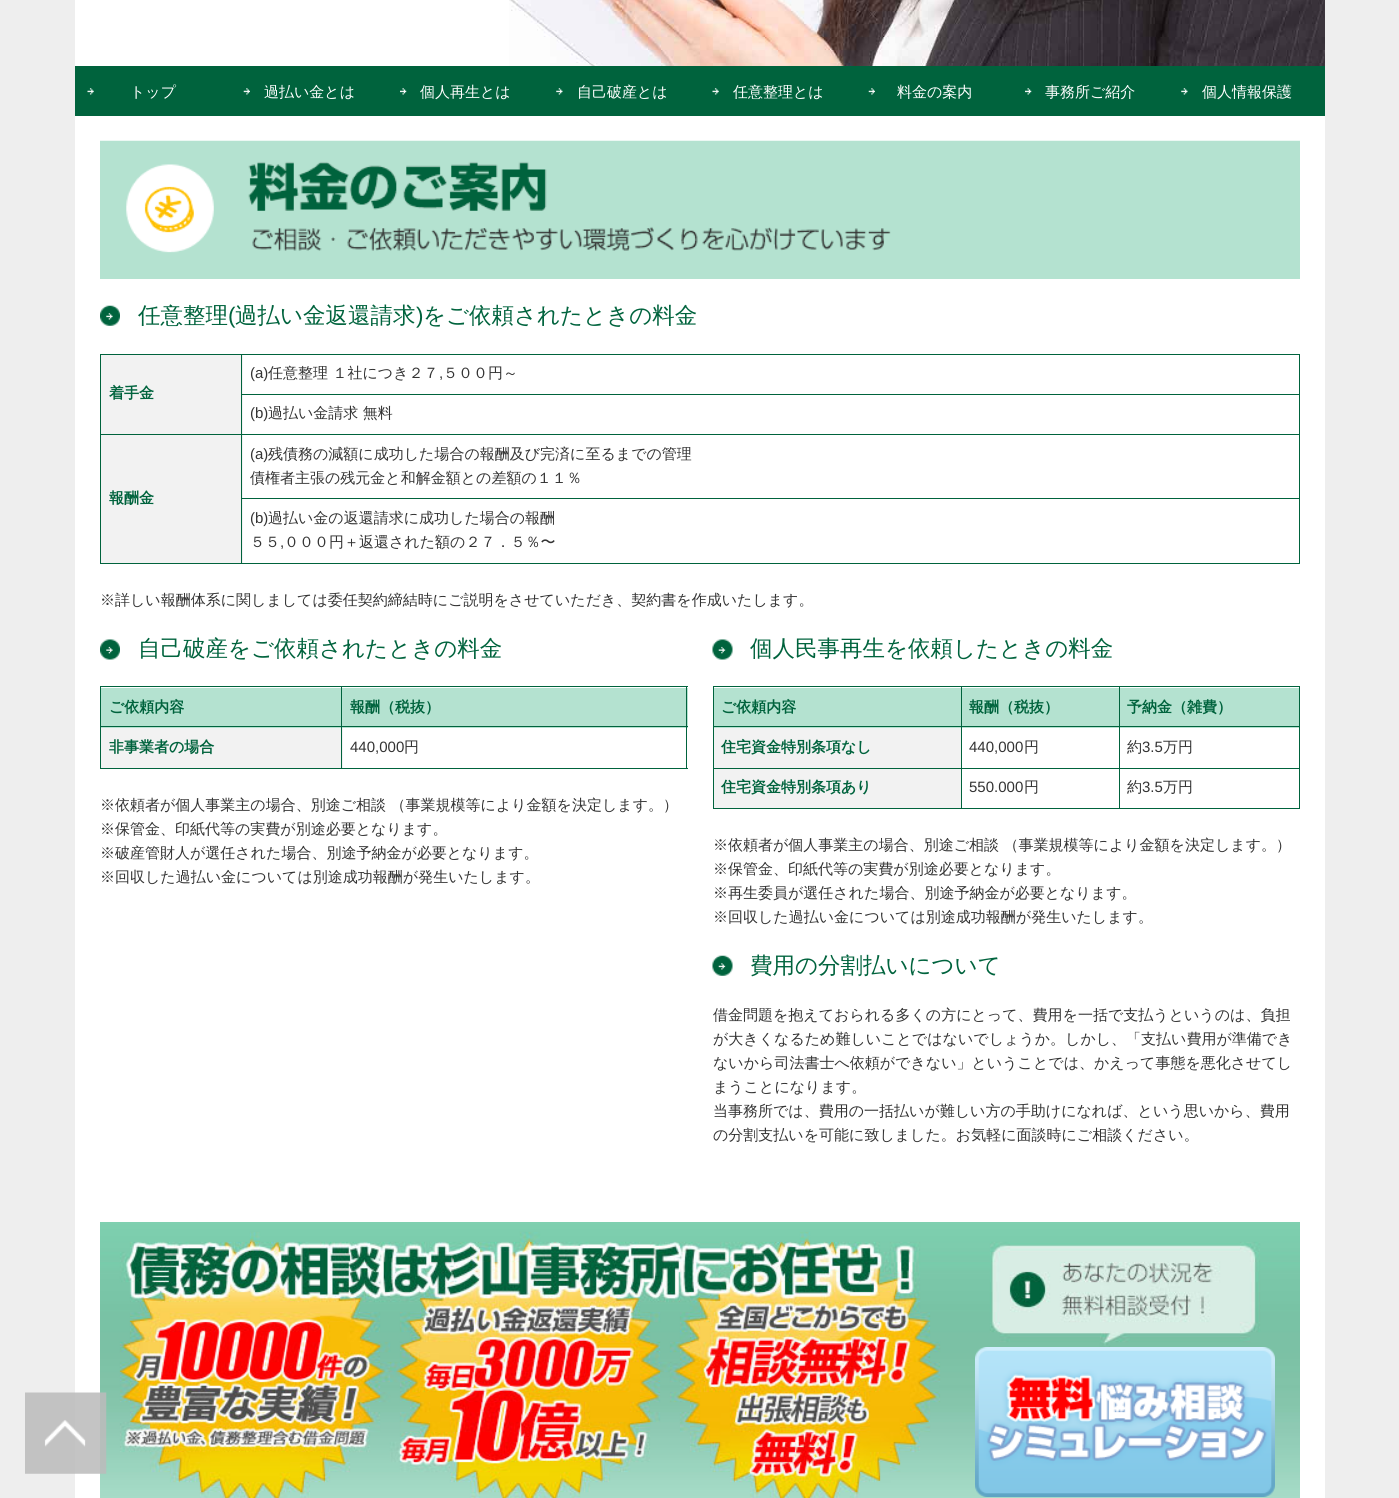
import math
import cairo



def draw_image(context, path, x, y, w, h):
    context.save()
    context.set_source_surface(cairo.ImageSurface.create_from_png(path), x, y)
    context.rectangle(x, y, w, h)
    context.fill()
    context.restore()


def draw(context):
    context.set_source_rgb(238 / 255, 238 / 255, 238 / 255)
    context.paint()
    context.set_source_rgb(1, 1, 1)
    context.rectangle(75, 0, 1250, 1498)
    context.fill()
    draw_image(context, "images/1.png", 509, 0, 816, 66)
    context.set_source_rgb(0, 99 / 255, 61 / 255)
    context.rectangle(75, 66, 1250, 50)
    context.fill()
    draw_image(context, "images/2.png", 87, 88, 7, 7)
    draw_image(context, "images/3.png", 243, 88, 7, 7)
    draw_image(context, "images/4.png", 400, 88, 7, 7)
    draw_image(context, "images/5.png", 556, 88, 7, 7)
    draw_image(context, "images/2.png", 712, 88, 7, 7)
    draw_image(context, "images/6.png", 868, 88, 7, 7)
    draw_image(context, "images/7.png", 1025, 88, 7, 7)
    draw_image(context, "images/5.png", 1181, 88, 7, 7)
    context.set_source_rgb(180 / 255, 226 / 255, 208 / 255)
    context.rectangle(100, 253, 1200, 26)
    context.fill()
    draw_image(context, "images/8.png", 100, 140, 1200, 113)
    draw_image(context, "images/9.png", 100, 305, 20, 21)
    context.set_source_rgb(0, 99 / 255, 61 / 255)
    context.rectangle(241, 354, 1059, 1)
    context.fill()
    context.set_source_rgb(242 / 255, 242 / 255, 242 / 255)
    context.rectangle(101, 355, 142, 79)
    context.fill()
    context.set_source_rgb(0, 99 / 255, 61 / 255)
    context.rectangle(241, 394, 1059, 1)
    context.fill()
    context.rectangle(241, 434, 1059, 1)
    context.fill()
    context.set_source_rgb(242 / 255, 242 / 255, 242 / 255)
    context.rectangle(101, 435, 142, 128)
    context.fill()
    context.set_source_rgb(0, 99 / 255, 61 / 255)
    context.rectangle(241, 498, 1059, 1)
    context.fill()
    context.rectangle(1299, 498, 1, 66)
    context.fill()
    context.rectangle(1299, 434, 1, 65)
    context.fill()
    context.rectangle(1299, 394, 1, 41)
    context.fill()
    context.rectangle(1299, 354, 1, 41)
    context.fill()
    context.rectangle(241, 563, 1059, 1)
    context.fill()
    context.rectangle(241, 498, 1, 66)
    context.fill()
    context.rectangle(241, 434, 1, 65)
    context.fill()
    context.rectangle(100, 434, 143, 1)
    context.fill()
    context.rectangle(241, 394, 1, 41)
    context.fill()
    context.rectangle(241, 354, 1, 41)
    context.fill()
    context.rectangle(100, 354, 143, 1)
    context.fill()
    context.rectangle(100, 563, 143, 1)
    context.fill()
    context.rectangle(100, 434, 1, 130)
    context.fill()
    context.rectangle(100, 354, 1, 81)
    context.fill()
    draw_image(context, "images/10.png", 100, 639, 20, 21)
    context.set_source_rgb(180 / 255, 226 / 255, 208 / 255)
    context.rectangle(101, 688, 587, 40)
    context.fill()
    context.set_source_rgb(0, 99 / 255, 61 / 255)
    context.rectangle(341, 686, 347, 1)
    context.fill()
    context.rectangle(341, 726, 347, 1)
    context.fill()
    context.set_source_rgb(242 / 255, 242 / 255, 242 / 255)
    context.rectangle(101, 728, 242, 40)
    context.fill()
    context.set_source_rgb(0, 99 / 255, 61 / 255)
    context.rectangle(686, 726, 1, 43)
    context.fill()
    context.rectangle(341, 768, 347, 1)
    context.fill()
    context.rectangle(341, 726, 1, 43)
    context.fill()
    context.rectangle(100, 726, 243, 1)
    context.fill()
    context.rectangle(341, 686, 1, 42)
    context.fill()
    context.rectangle(100, 686, 243, 1)
    context.fill()
    context.rectangle(100, 768, 243, 1)
    context.fill()
    context.rectangle(100, 726, 1, 43)
    context.fill()
    context.rectangle(100, 686, 1, 42)
    context.fill()
    context.rectangle(686, 686, 1, 42)
    context.fill()
    draw_image(context, "images/11.png", 712, 639, 21, 21)
    context.set_source_rgb(180 / 255, 226 / 255, 208 / 255)
    context.rectangle(714, 688, 247, 40)
    context.fill()
    context.set_source_rgb(0, 99 / 255, 61 / 255)
    context.rectangle(1119, 686, 181, 1)
    context.fill()
    context.set_source_rgb(180 / 255, 226 / 255, 208 / 255)
    context.rectangle(962, 688, 157, 40)
    context.fill()
    context.rectangle(1120, 688, 179, 40)
    context.fill()
    context.set_source_rgb(0, 99 / 255, 61 / 255)
    context.rectangle(1119, 726, 181, 1)
    context.fill()
    context.rectangle(1119, 768, 181, 1)
    context.fill()
    context.rectangle(1299, 768, 1, 41)
    context.fill()
    context.rectangle(1119, 808, 181, 1)
    context.fill()
    context.rectangle(1119, 768, 1, 41)
    context.fill()
    context.rectangle(961, 768, 159, 1)
    context.fill()
    context.rectangle(1119, 726, 1, 43)
    context.fill()
    context.rectangle(961, 726, 159, 1)
    context.fill()
    context.rectangle(1119, 686, 1, 42)
    context.fill()
    context.rectangle(961, 686, 159, 1)
    context.fill()
    context.rectangle(961, 808, 159, 1)
    context.fill()
    context.rectangle(961, 768, 1, 41)
    context.fill()
    context.rectangle(713, 768, 250, 1)
    context.fill()
    context.rectangle(961, 726, 1, 43)
    context.fill()
    context.rectangle(713, 726, 250, 1)
    context.fill()
    context.rectangle(961, 686, 1, 42)
    context.fill()
    context.rectangle(713, 686, 250, 1)
    context.fill()
    context.rectangle(713, 808, 250, 1)
    context.fill()
    context.rectangle(713, 768, 1, 41)
    context.fill()
    context.rectangle(713, 726, 1, 43)
    context.fill()
    context.rectangle(713, 686, 1, 42)
    context.fill()
    context.rectangle(1299, 726, 1, 43)
    context.fill()
    context.rectangle(1299, 686, 1, 42)
    context.fill()
    context.set_source_rgb(242 / 255, 242 / 255, 242 / 255)
    context.rectangle(714, 728, 247, 40)
    context.fill()
    context.rectangle(714, 769, 247, 39)
    context.fill()
    draw_image(context, "images/12.png", 712, 955, 21, 21)
    draw_image(context, "images/13.png", 100, 1222, 1200, 276)
    draw_image(context, "images/14.png", 975, 1347, 300, 150)
    draw_image(context, "images/15.png", 25, 1392, 82, 82)
    context.select_font_face("WenQuanYi Zen Hei Medium")
    context.set_font_size(15)
    context.set_source_rgb(1, 1, 1)
    context.move_to(130, 97)
    context.show_text("トップ")
    context.move_to(264, 97)
    context.show_text("過払い金とは")
    context.move_to(420, 97)
    context.show_text("個人再生とは")
    context.move_to(577, 97)
    context.show_text("自己破産とは")
    context.move_to(733, 97)
    context.show_text("任意整理とは")
    context.move_to(897, 97)
    context.show_text("料金の案内")
    context.move_to(1045, 97)
    context.show_text("事務所ご紹介")
    context.move_to(1202, 97)
    context.show_text("個人情報保護")
    context.set_font_size(22.5)
    context.set_source_rgb(0, 99 / 255, 61 / 255)
    context.move_to(138, 323)
    context.show_text("任意整理")
    context.select_font_face("Liberation Sans")
    context.move_to(228, 323)
    context.show_text("(")
    context.select_font_face("WenQuanYi Zen Hei Medium")
    context.move_to(235, 323)
    context.show_text("過払い金返還請求")
    context.select_font_face("Liberation Sans")
    context.move_to(416, 323)
    context.show_text(")")
    context.select_font_face("WenQuanYi Zen Hei Medium")
    context.move_to(423, 323)
    context.show_text("をご依頼されたときの料金")
    context.select_font_face("Liberation Sans")
    context.set_font_size(15)
    context.set_source_rgb(51 / 255, 51 / 255, 51 / 255)
    context.move_to(250, 378)
    context.show_text("(a)")
    context.select_font_face("WenQuanYi Zen Hei Medium")
    context.move_to(268, 378)
    context.show_text("任意整理 １社につき２７")
    context.select_font_face("Liberation Sans")
    context.move_to(439, 378)
    context.show_text(",")
    context.select_font_face("WenQuanYi Zen Hei Medium")
    context.move_to(443, 378)
    context.show_text("５００円～")
    context.select_font_face("WenQuanYi Zen Hei", cairo.FontSlant.NORMAL, cairo.FontWeight.BOLD)
    context.set_source_rgb(0, 99 / 255, 61 / 255)
    context.move_to(109, 398)
    context.show_text("着手金")
    context.select_font_face("Liberation Sans")
    context.set_source_rgb(51 / 255, 51 / 255, 51 / 255)
    context.move_to(250, 418)
    context.show_text("(b)")
    context.select_font_face("WenQuanYi Zen Hei Medium")
    context.move_to(268, 418)
    context.show_text("過払い金請求 無料")
    context.select_font_face("Liberation Sans")
    context.move_to(250, 459)
    context.show_text("(a)")
    context.select_font_face("WenQuanYi Zen Hei Medium")
    context.move_to(268, 459)
    context.show_text("残債務の減額に成功した場合の報酬及び完済に至るまでの管理")
    context.move_to(250, 483)
    context.show_text("債権者主張の残元金と和解金額との差額の１１％")
    context.select_font_face("WenQuanYi Zen Hei", cairo.FontSlant.NORMAL, cairo.FontWeight.BOLD)
    context.set_source_rgb(0, 99 / 255, 61 / 255)
    context.move_to(109, 503)
    context.show_text("報酬金")
    context.select_font_face("Liberation Sans")
    context.set_source_rgb(51 / 255, 51 / 255, 51 / 255)
    context.move_to(250, 523)
    context.show_text("(b)")
    context.select_font_face("WenQuanYi Zen Hei Medium")
    context.move_to(268, 523)
    context.show_text("過払い金の返還請求に成功した場合の報酬")
    context.move_to(250, 547)
    context.show_text("５５")
    context.select_font_face("Liberation Sans")
    context.move_to(280, 547)
    context.show_text(",")
    context.select_font_face("WenQuanYi Zen Hei Medium")
    context.move_to(284, 547)
    context.show_text("０００円＋返還された額の２７．５％〜")
    context.move_to(100, 605)
    context.show_text("※詳しい報酬体系に関しましては委任契約締結時にご説明をさせていただき、契約書を作成いたします。")
    context.set_font_size(22.5)
    context.set_source_rgb(0, 99 / 255, 61 / 255)
    context.move_to(138, 656)
    context.show_text("自己破産をご依頼されたときの料金")
    context.select_font_face("WenQuanYi Zen Hei", cairo.FontSlant.NORMAL, cairo.FontWeight.BOLD)
    context.set_font_size(15)
    context.move_to(109, 712)
    context.show_text("ご依頼内容")
    context.move_to(350, 712)
    context.show_text("報酬（税抜）")
    context.move_to(109, 752)
    context.show_text("非事業者の場合")
    context.select_font_face("Liberation Sans")
    context.set_source_rgb(51 / 255, 51 / 255, 51 / 255)
    context.move_to(350, 752)
    context.show_text("440,000")
    context.select_font_face("WenQuanYi Zen Hei Medium")
    context.move_to(404, 752)
    context.show_text("円")
    context.move_to(100, 810)
    context.show_text("※依頼者が個人事業主の場合、別途ご相談 （事業規模等により金額を決定します。）")
    context.move_to(100, 834)
    context.show_text("※保管金、印紙代等の実費が別途必要となります。")
    context.move_to(100, 858)
    context.show_text("※破産管財人が選任された場合、別途予納金が必要となります。")
    context.move_to(100, 882)
    context.show_text("※回収した過払い金については別途成功報酬が発生いたします。")
    context.set_font_size(22.5)
    context.set_source_rgb(0, 99 / 255, 61 / 255)
    context.move_to(750, 656)
    context.show_text("個人民事再生を依頼したときの料金")
    context.select_font_face("WenQuanYi Zen Hei", cairo.FontSlant.NORMAL, cairo.FontWeight.BOLD)
    context.set_font_size(15)
    context.move_to(721, 712)
    context.show_text("ご依頼内容")
    context.move_to(969, 712)
    context.show_text("報酬（税抜）")
    context.move_to(1127, 712)
    context.show_text("予納金（雑費）")
    context.move_to(721, 752)
    context.show_text("住宅資金特別条項なし")
    context.select_font_face("Liberation Sans")
    context.set_source_rgb(51 / 255, 51 / 255, 51 / 255)
    context.move_to(969, 752)
    context.show_text("440,000")
    context.select_font_face("WenQuanYi Zen Hei Medium")
    context.move_to(1024, 752)
    context.show_text("円")
    context.move_to(1127, 752)
    context.show_text("約")
    context.select_font_face("Liberation Sans")
    context.move_to(1142, 752)
    context.show_text("3.5")
    context.select_font_face("WenQuanYi Zen Hei Medium")
    context.move_to(1163, 752)
    context.show_text("万円")
    context.select_font_face("WenQuanYi Zen Hei", cairo.FontSlant.NORMAL, cairo.FontWeight.BOLD)
    context.set_source_rgb(0, 99 / 255, 61 / 255)
    context.move_to(721, 792)
    context.show_text("住宅資金特別条項あり")
    context.select_font_face("Liberation Sans")
    context.set_source_rgb(51 / 255, 51 / 255, 51 / 255)
    context.move_to(969, 792)
    context.show_text("550.000")
    context.select_font_face("WenQuanYi Zen Hei Medium")
    context.move_to(1024, 792)
    context.show_text("円")
    context.move_to(1127, 792)
    context.show_text("約")
    context.select_font_face("Liberation Sans")
    context.move_to(1142, 792)
    context.show_text("3.5")
    context.select_font_face("WenQuanYi Zen Hei Medium")
    context.move_to(1163, 792)
    context.show_text("万円")
    context.move_to(713, 850)
    context.show_text("※依頼者が個人事業主の場合、別途ご相談 （事業規模等により金額を決定します。）")
    context.move_to(713, 874)
    context.show_text("※保管金、印紙代等の実費が別途必要となります。")
    context.move_to(713, 898)
    context.show_text("※再生委員が選任された場合、別途予納金が必要となります。")
    context.move_to(713, 922)
    context.show_text("※回収した過払い金については別途成功報酬が発生いたします。")
    context.set_font_size(22.5)
    context.set_source_rgb(0, 99 / 255, 61 / 255)
    context.move_to(750, 973)
    context.show_text("費用の分割払いについて")
    context.set_font_size(15)
    context.set_source_rgb(51 / 255, 51 / 255, 51 / 255)
    context.move_to(713, 1020)
    context.show_text("借金問題を抱えておられる多くの方にとって、費用を一括で支払うというのは、負担")
    context.move_to(713, 1044)
    context.show_text("が大きくなるため難しいことではないでしょうか。しかし、「支払い費用が準備でき")
    context.move_to(713, 1068)
    context.show_text("ないから司法書士へ依頼ができない」ということでは、かえって事態を悪化させてし")
    context.move_to(713, 1092)
    context.show_text("まうことになります。")
    context.move_to(713, 1116)
    context.show_text("当事務所では、費用の一括払いが難しい方の手助けになれば、という思いから、費用")
    context.move_to(713, 1140)
    context.show_text("の分割支払いを可能に致しました。お気軽に面談時にご相談ください。")


surface = cairo.ImageSurface(cairo.Format.RGB24, 1399, 1498)
context = cairo.Context(surface)
options = cairo.FontOptions()
options.set_hint_metrics(cairo.HintMetrics.OFF)
options.set_hint_style(cairo.HintStyle.NONE)
context.set_font_options(options)
context.set_miter_limit(4)
draw(context)
surface.write_to_png("out.png")
